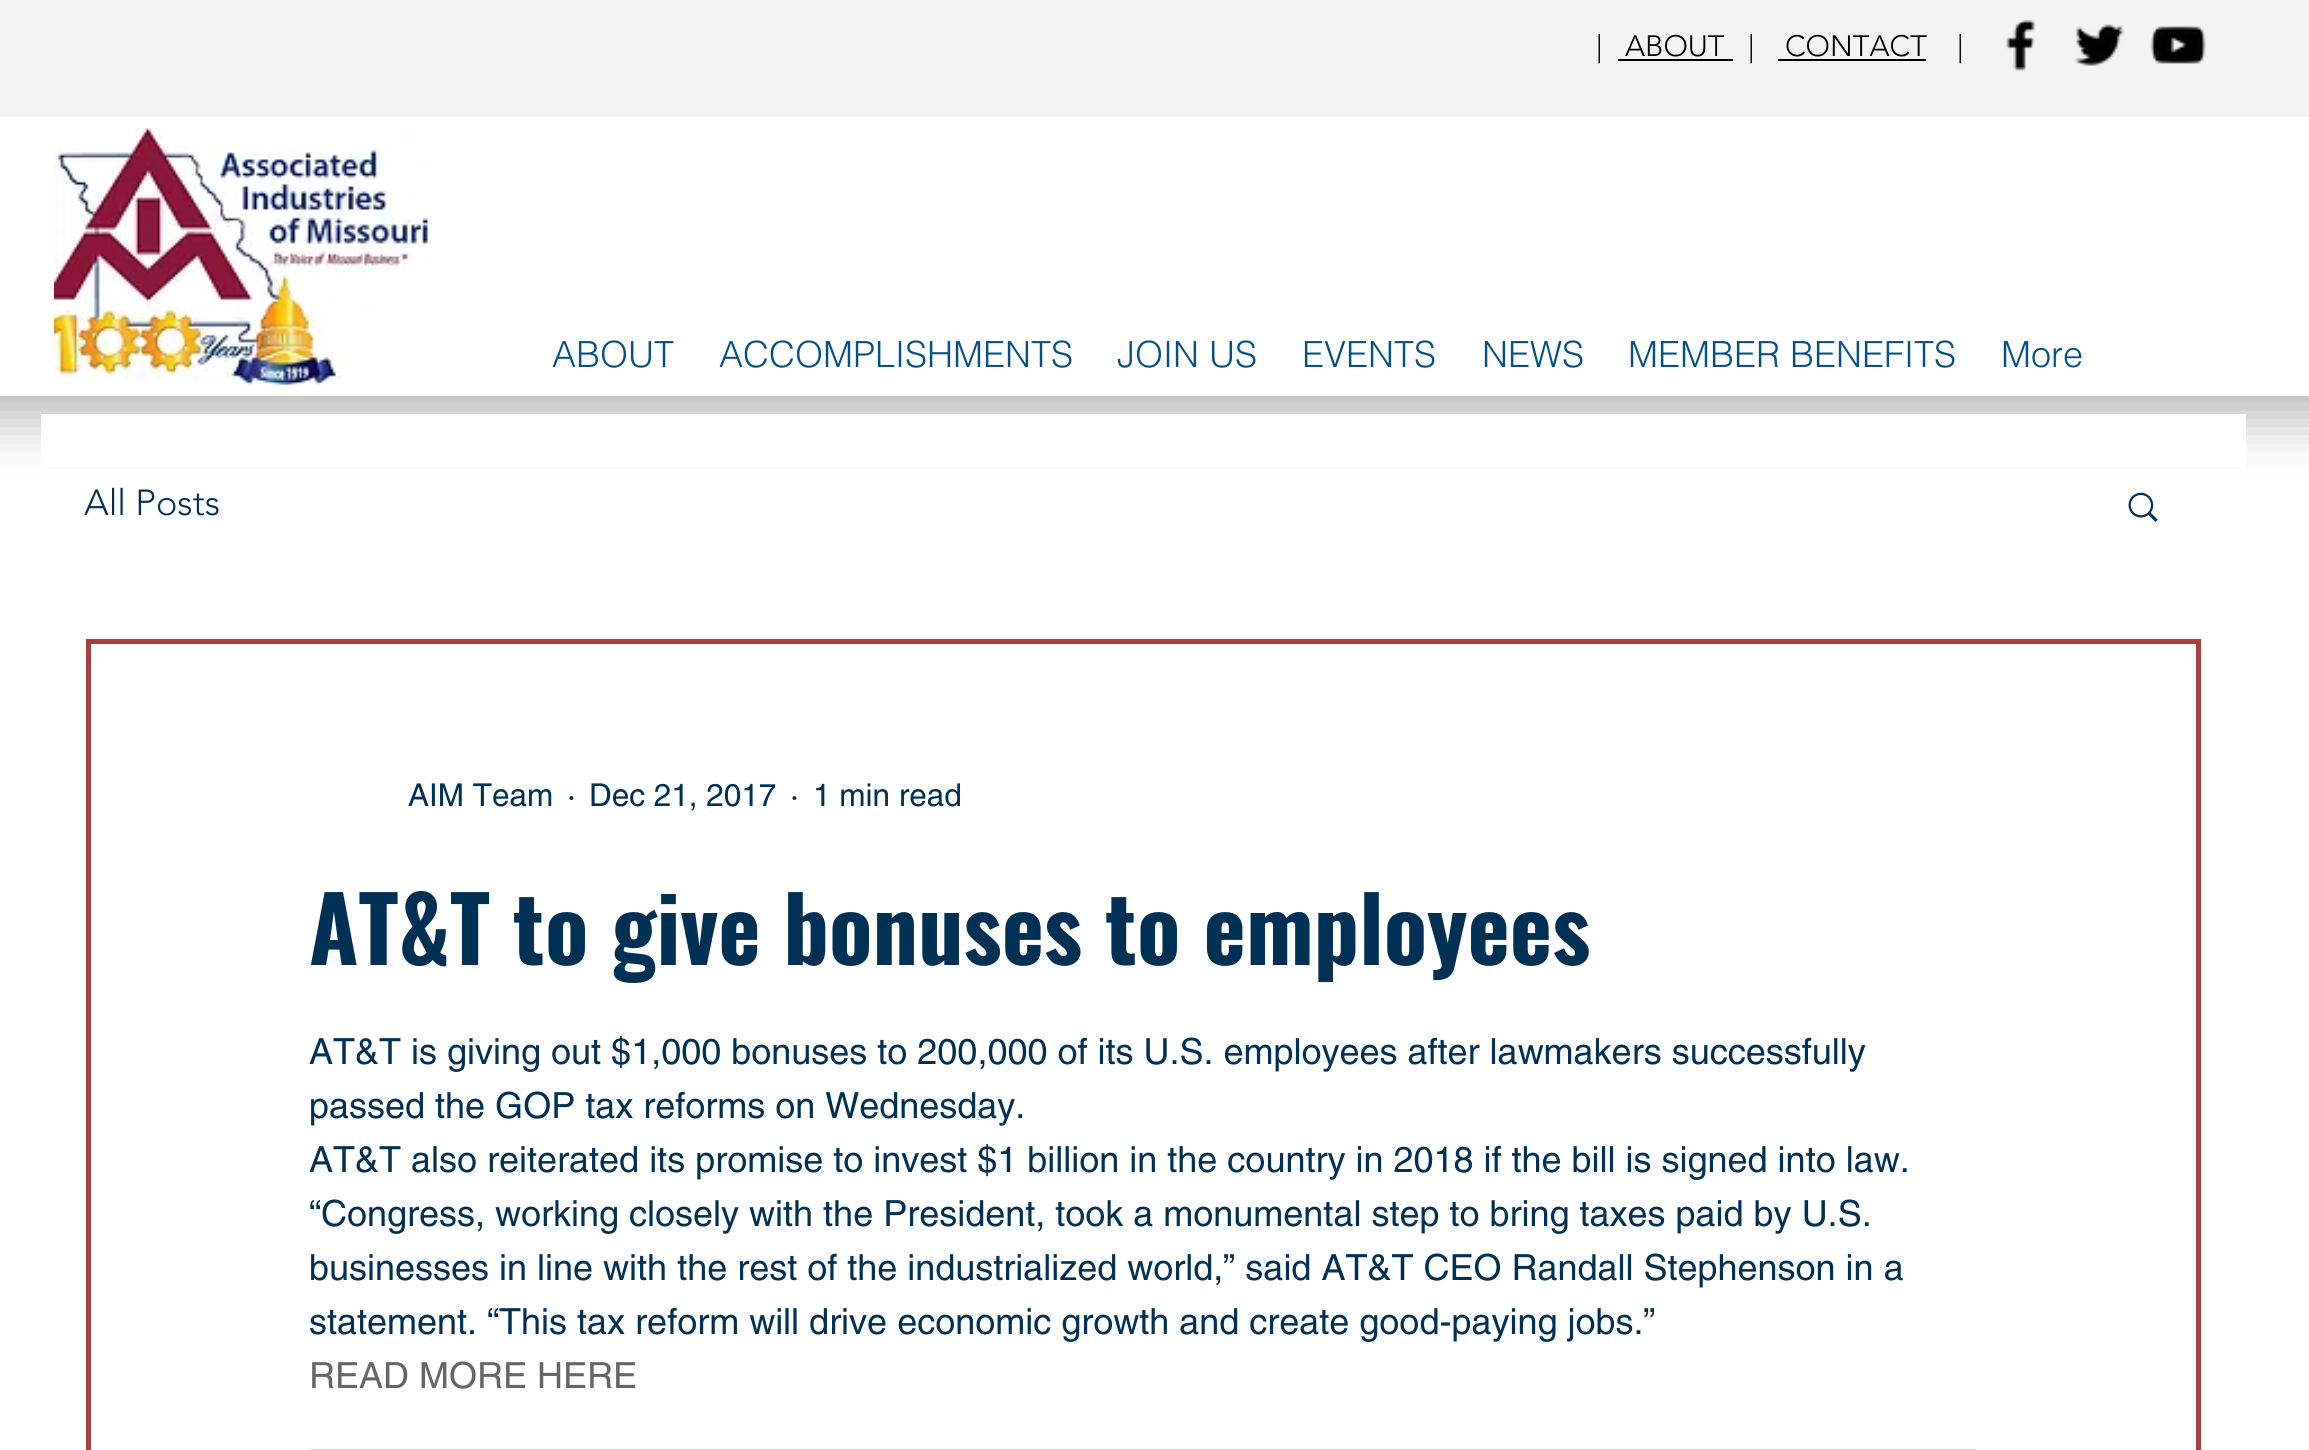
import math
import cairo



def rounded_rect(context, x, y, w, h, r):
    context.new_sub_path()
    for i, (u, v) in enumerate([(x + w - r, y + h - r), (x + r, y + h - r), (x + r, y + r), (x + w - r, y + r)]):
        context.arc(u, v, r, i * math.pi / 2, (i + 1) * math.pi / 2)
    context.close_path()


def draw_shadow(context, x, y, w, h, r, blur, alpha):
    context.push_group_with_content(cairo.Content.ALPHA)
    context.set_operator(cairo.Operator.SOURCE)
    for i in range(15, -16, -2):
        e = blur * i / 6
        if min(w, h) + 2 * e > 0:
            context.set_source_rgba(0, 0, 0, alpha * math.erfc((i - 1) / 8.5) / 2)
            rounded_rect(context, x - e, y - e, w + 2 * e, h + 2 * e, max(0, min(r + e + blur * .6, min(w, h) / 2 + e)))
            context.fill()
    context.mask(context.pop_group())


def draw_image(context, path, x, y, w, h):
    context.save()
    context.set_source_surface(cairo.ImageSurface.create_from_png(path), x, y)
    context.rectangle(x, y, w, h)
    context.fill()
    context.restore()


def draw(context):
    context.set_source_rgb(1, 1, 1)
    context.paint()
    context.set_source_rgb(0, 0, 0)
    draw_shadow(context, -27, -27, 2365, 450, 0, 25, 0.25)
    context.set_source_rgb(1, 1, 1)
    context.rectangle(0, 117, 2309, 279)
    context.fill()
    context.set_source_rgb(243 / 255, 243 / 255, 243 / 255)
    context.rectangle(0, 0, 2309, 117)
    context.fill()
    context.set_source_rgb(0, 0, 0)
    context.rectangle(1618, 59, 115, 2)
    context.fill()
    context.rectangle(1778, 59, 148, 2)
    context.fill()
    draw_image(context, "images/1.png", 2006, 19, 29, 52)
    draw_image(context, "images/2.png", 2074, 24, 51, 42)
    draw_image(context, "images/3.png", 2150, 26, 56, 38)
    draw_image(context, "images/4.png", 54, 128, 378, 257)
    context.set_source_rgb(1, 1, 1)
    context.rectangle(41, 414, 2205, 53)
    context.fill()
    draw_image(context, "images/5.png", 2128, 492, 30, 30)
    context.rectangle(88.5, 641.5, 2110, 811)
    context.set_source_rgb(168 / 255, 64 / 255, 64 / 255)
    context.set_line_width(5)
    context.stroke()
    context.set_source_rgb(204 / 255, 214 / 255, 221 / 255)
    context.rectangle(311, 1449, 1665, 1)
    context.fill()
    context.select_font_face("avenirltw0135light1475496 Light")
    context.set_font_size(29.25)
    context.set_source_rgb(0, 0, 0)
    context.move_to(1596, 56)
    context.show_text("|")
    context.move_to(1625, 56)
    context.show_text("ABOUT")
    context.move_to(1748, 56)
    context.show_text("|")
    context.move_to(1785, 56)
    context.show_text("CONTACT")
    context.move_to(1957, 56)
    context.show_text("|")
    context.select_font_face("helvetica Light")
    context.set_font_size(36)
    context.set_source_rgb(4 / 255, 81 / 255, 132 / 255)
    context.move_to(552, 367)
    context.show_text("ABOUT")
    context.move_to(719, 367)
    context.show_text("ACCOMPLISHMENTS")
    context.move_to(1117, 367)
    context.show_text("JOIN US")
    context.move_to(1302, 367)
    context.show_text("EVENTS")
    context.move_to(1482, 367)
    context.show_text("NEWS")
    context.move_to(1628, 367)
    context.show_text("MEMBER BENEFITS")
    context.move_to(2001, 367)
    context.show_text("More")
    context.select_font_face("avenirltw0135light1475496 Light")
    context.set_source_rgb(0, 49 / 255, 84 / 255)
    context.move_to(84, 515)
    context.show_text("All Posts")
    context.select_font_face("helvetica")
    context.set_font_size(31.5)
    context.move_to(408, 806)
    context.show_text("AIM Team")
    context.move_to(567, 806)
    context.show_text("·")
    context.move_to(589, 806)
    context.show_text("Dec 21, 2017")
    context.move_to(790, 806)
    context.show_text("·")
    context.move_to(813, 806)
    context.show_text("1 min read")
    context.select_font_face("Oswald", cairo.FontSlant.NORMAL, cairo.FontWeight.BOLD)
    context.set_font_size(90)
    context.move_to(309, 965)
    context.show_text("AT&T to give bonuses to employees")
    context.select_font_face("helvetica")
    context.set_font_size(36)
    context.move_to(309, 1064)
    context.show_text("AT&T is giving out $1,000 bonuses to 200,000 of its U.S. employees after lawmakers successfully")
    context.move_to(309, 1118)
    context.show_text("passed the GOP tax reforms on Wednesday.")
    context.move_to(309, 1172)
    context.show_text("AT&T also reiterated its promise to invest $1 billion in the country in 2018 if the bill is signed into law.")
    context.move_to(309, 1226)
    context.show_text("“Congress, working closely with the President, took a monumental step to bring taxes paid by U.S.")
    context.move_to(309, 1280)
    context.show_text("businesses in line with the rest of the industrialized world,” said AT&T CEO Randall Stephenson in a")
    context.move_to(309, 1334)
    context.show_text("statement. “This tax reform will drive economic growth and create good-paying jobs.”")
    context.set_source_rgb(102 / 255, 102 / 255, 102 / 255)
    context.move_to(309, 1388)
    context.show_text("READ MORE HERE")


surface = cairo.ImageSurface(cairo.Format.RGB24, 2309, 1450)
context = cairo.Context(surface)
options = cairo.FontOptions()
options.set_hint_metrics(cairo.HintMetrics.OFF)
options.set_hint_style(cairo.HintStyle.NONE)
context.set_font_options(options)
context.set_miter_limit(4)
draw(context)
surface.write_to_png("out.png")
